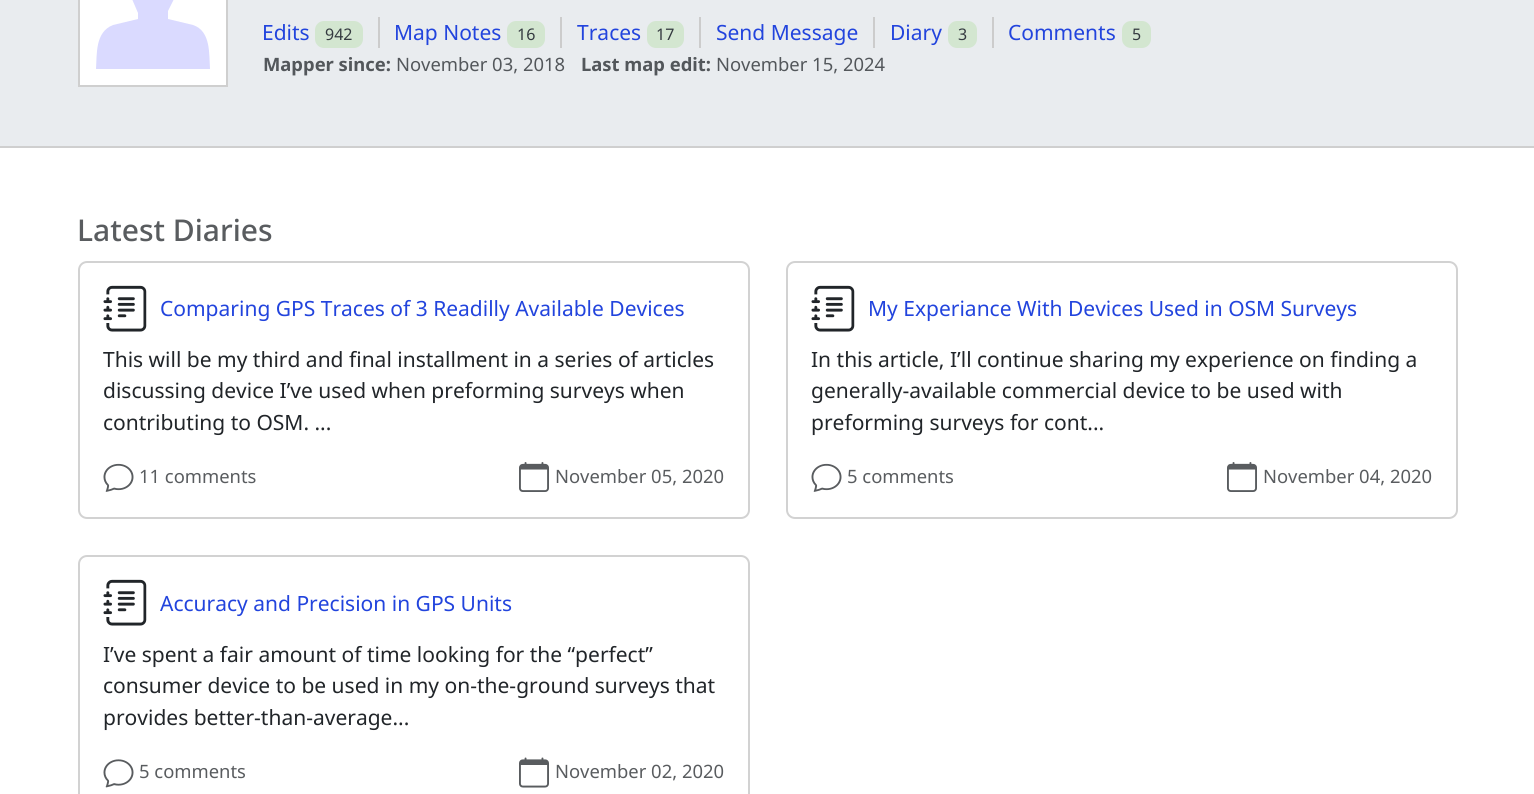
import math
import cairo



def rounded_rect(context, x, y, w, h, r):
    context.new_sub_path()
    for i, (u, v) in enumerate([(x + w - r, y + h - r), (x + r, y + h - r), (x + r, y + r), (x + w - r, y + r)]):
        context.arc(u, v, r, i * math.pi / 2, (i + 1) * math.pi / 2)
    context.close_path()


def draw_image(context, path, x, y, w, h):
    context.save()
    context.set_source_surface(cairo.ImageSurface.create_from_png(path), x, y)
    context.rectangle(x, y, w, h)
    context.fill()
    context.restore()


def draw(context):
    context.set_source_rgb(1, 1, 1)
    context.paint()
    context.set_source_rgb(233 / 255, 236 / 255, 239 / 255)
    context.rectangle(0, 0, 1534, 146)
    context.fill()
    context.set_source_rgb(207 / 255, 207 / 255, 207 / 255)
    context.rectangle(0, 146, 1534, 2)
    context.fill()
    context.set_source_rgb(1, 1, 1)
    context.rectangle(79, -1, 148, 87)
    context.fill_preserve()
    context.set_source_rgb(207 / 255, 207 / 255, 207 / 255)
    context.stroke()
    context.set_source_rgb(218 / 255, 218 / 255, 1)
    context.new_path()
    context.move_to(153, -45)
    context.curve_to(130, -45, 127, -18, 132, -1)
    context.line_to(138, 13)
    context.line_to(138, 19)
    context.line_to(113, 25)
    context.curve_to(95, 32, 97, 54, 96, 69)
    context.line_to(210, 69)
    context.curve_to(209, 54, 211, 31, 193, 25)
    context.line_to(168, 19)
    context.line_to(168, 11)
    context.line_to(174, -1)
    context.curve_to(176, -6, 176, -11, 176, -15)
    context.curve_to(176, -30, 171, -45, 153, -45)
    context.close_path()
    context.fill()
    context.set_source_rgb(211 / 255, 230 / 255, 208 / 255)
    rounded_rect(context, 315, 21, 48, 27, 9)
    context.fill()
    context.set_source_rgb(204 / 255, 204 / 255, 204 / 255)
    context.rectangle(378, 17, 2, 31)
    context.fill()
    context.set_source_rgb(211 / 255, 230 / 255, 208 / 255)
    rounded_rect(context, 507, 21, 38, 27, 9)
    context.fill()
    context.set_source_rgb(204 / 255, 204 / 255, 204 / 255)
    context.rectangle(560, 17, 2, 31)
    context.fill()
    context.set_source_rgb(211 / 255, 230 / 255, 208 / 255)
    rounded_rect(context, 647, 21, 37, 27, 9)
    context.fill()
    context.set_source_rgb(204 / 255, 204 / 255, 204 / 255)
    context.rectangle(699, 17, 2, 31)
    context.fill()
    context.rectangle(873, 17, 2, 31)
    context.fill()
    context.set_source_rgb(211 / 255, 230 / 255, 208 / 255)
    rounded_rect(context, 948, 21, 29, 27, 9)
    context.fill()
    context.set_source_rgb(204 / 255, 204 / 255, 204 / 255)
    context.rectangle(992, 17, 2, 31)
    context.fill()
    context.set_source_rgb(211 / 255, 230 / 255, 208 / 255)
    rounded_rect(context, 1122, 21, 29, 27, 9)
    context.fill()
    rounded_rect(context, 79, 262, 670, 256, 8)
    context.set_source_rgb(210 / 255, 210 / 255, 210 / 255)
    context.stroke()
    draw_image(context, "images/1.png", 103, 285, 44, 47)
    draw_image(context, "images/2.png", 103, 463, 31, 29)
    draw_image(context, "images/3.png", 519, 462, 30, 30)
    rounded_rect(context, 787, 262, 670, 256, 8)
    context.stroke()
    draw_image(context, "images/1.png", 811, 285, 44, 47)
    draw_image(context, "images/2.png", 811, 463, 31, 29)
    draw_image(context, "images/3.png", 1227, 462, 30, 30)
    rounded_rect(context, 79, 556, 670, 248, 8)
    context.stroke()
    draw_image(context, "images/1.png", 103, 579, 44, 47)
    draw_image(context, "images/4.png", 103, 759, 31, 29)
    draw_image(context, "images/5.png", 519, 757, 30, 31)
    context.select_font_face("Noto Sans")
    context.set_font_size(21)
    context.set_source_rgb(34 / 255, 68 / 255, 221 / 255)
    context.move_to(262, 40)
    context.show_text("Edits")
    context.set_font_size(16)
    context.set_source_rgb(52 / 255, 58 / 255, 64 / 255)
    context.move_to(325, 40)
    context.show_text("942")
    context.set_font_size(21)
    context.set_source_rgb(34 / 255, 68 / 255, 221 / 255)
    context.move_to(394, 40)
    context.show_text("Map Notes")
    context.set_font_size(16)
    context.set_source_rgb(52 / 255, 58 / 255, 64 / 255)
    context.move_to(517, 40)
    context.show_text("16")
    context.set_font_size(21)
    context.set_source_rgb(34 / 255, 68 / 255, 221 / 255)
    context.move_to(577, 40)
    context.show_text("Traces")
    context.set_font_size(16)
    context.set_source_rgb(52 / 255, 58 / 255, 64 / 255)
    context.move_to(656, 40)
    context.show_text("17")
    context.set_font_size(21)
    context.set_source_rgb(34 / 255, 68 / 255, 221 / 255)
    context.move_to(716, 40)
    context.show_text("Send Message")
    context.move_to(890, 40)
    context.show_text("Diary")
    context.set_font_size(16)
    context.set_source_rgb(52 / 255, 58 / 255, 64 / 255)
    context.move_to(958, 40)
    context.show_text("3")
    context.set_font_size(21)
    context.set_source_rgb(34 / 255, 68 / 255, 221 / 255)
    context.move_to(1008, 40)
    context.show_text("Comments")
    context.set_font_size(16)
    context.set_source_rgb(52 / 255, 58 / 255, 64 / 255)
    context.move_to(1132, 40)
    context.show_text("5")
    context.select_font_face("Noto Sans", cairo.FontSlant.NORMAL, cairo.FontWeight.BOLD)
    context.set_font_size(18.4)
    context.set_source_rgb(83 / 255, 87 / 255, 91 / 255)
    context.move_to(263, 71)
    context.show_text("Mapper since:")
    context.select_font_face("Noto Sans")
    context.move_to(396, 71)
    context.show_text("November 03, 2018")
    context.select_font_face("Noto Sans", cairo.FontSlant.NORMAL, cairo.FontWeight.BOLD)
    context.move_to(581, 71)
    context.show_text("Last map edit:")
    context.select_font_face("Noto Sans")
    context.move_to(716, 71)
    context.show_text("November 15, 2024")
    context.select_font_face("Noto Sans Medium")
    context.set_font_size(30)
    context.set_source_rgb(89 / 255, 92 / 255, 95 / 255)
    context.move_to(77, 241)
    context.show_text("Latest Diaries")
    context.select_font_face("Noto Sans")
    context.set_font_size(21)
    context.set_source_rgb(34 / 255, 68 / 255, 221 / 255)
    context.move_to(160, 316)
    context.show_text("Comparing GPS Traces of 3 Readilly Available Devices")
    context.set_source_rgb(33 / 255, 37 / 255, 41 / 255)
    context.move_to(103, 367)
    context.show_text("This will be my third and final installment in a series of articles")
    context.move_to(103, 398)
    context.show_text("discussing device I’ve used when preforming surveys when")
    context.move_to(103, 430)
    context.show_text("contributing to OSM. ...")
    context.set_font_size(18.4)
    context.set_source_rgb(89 / 255, 92 / 255, 95 / 255)
    context.move_to(139, 483)
    context.show_text("11 comments")
    context.move_to(555, 483)
    context.show_text("November 05, 2020")
    context.set_font_size(21)
    context.set_source_rgb(34 / 255, 68 / 255, 221 / 255)
    context.move_to(868, 316)
    context.show_text("My Experiance With Devices Used in OSM Surveys")
    context.set_source_rgb(33 / 255, 37 / 255, 41 / 255)
    context.move_to(811, 367)
    context.show_text("In this article, I’ll continue sharing my experience on finding a")
    context.move_to(811, 398)
    context.show_text("generally-available commercial device to be used with")
    context.move_to(811, 430)
    context.show_text("preforming surveys for cont...")
    context.set_font_size(18.4)
    context.set_source_rgb(89 / 255, 92 / 255, 95 / 255)
    context.move_to(847, 483)
    context.show_text("5 comments")
    context.move_to(1263, 483)
    context.show_text("November 04, 2020")
    context.set_font_size(21)
    context.set_source_rgb(34 / 255, 68 / 255, 221 / 255)
    context.move_to(160, 611)
    context.show_text("Accuracy and Precision in GPS Units")
    context.set_source_rgb(33 / 255, 37 / 255, 41 / 255)
    context.move_to(103, 662)
    context.show_text("I’ve spent a fair amount of time looking for the “perfect”")
    context.move_to(103, 693)
    context.show_text("consumer device to be used in my on-the-ground surveys that")
    context.move_to(103, 725)
    context.show_text("provides better-than-average...")
    context.set_font_size(18.4)
    context.set_source_rgb(89 / 255, 92 / 255, 95 / 255)
    context.move_to(139, 778)
    context.show_text("5 comments")
    context.move_to(555, 778)
    context.show_text("November 02, 2020")


surface = cairo.ImageSurface(cairo.Format.RGB24, 1534, 794)
context = cairo.Context(surface)
options = cairo.FontOptions()
options.set_hint_metrics(cairo.HintMetrics.OFF)
options.set_hint_style(cairo.HintStyle.NONE)
context.set_font_options(options)
context.set_miter_limit(4)
draw(context)
surface.write_to_png("out.png")
